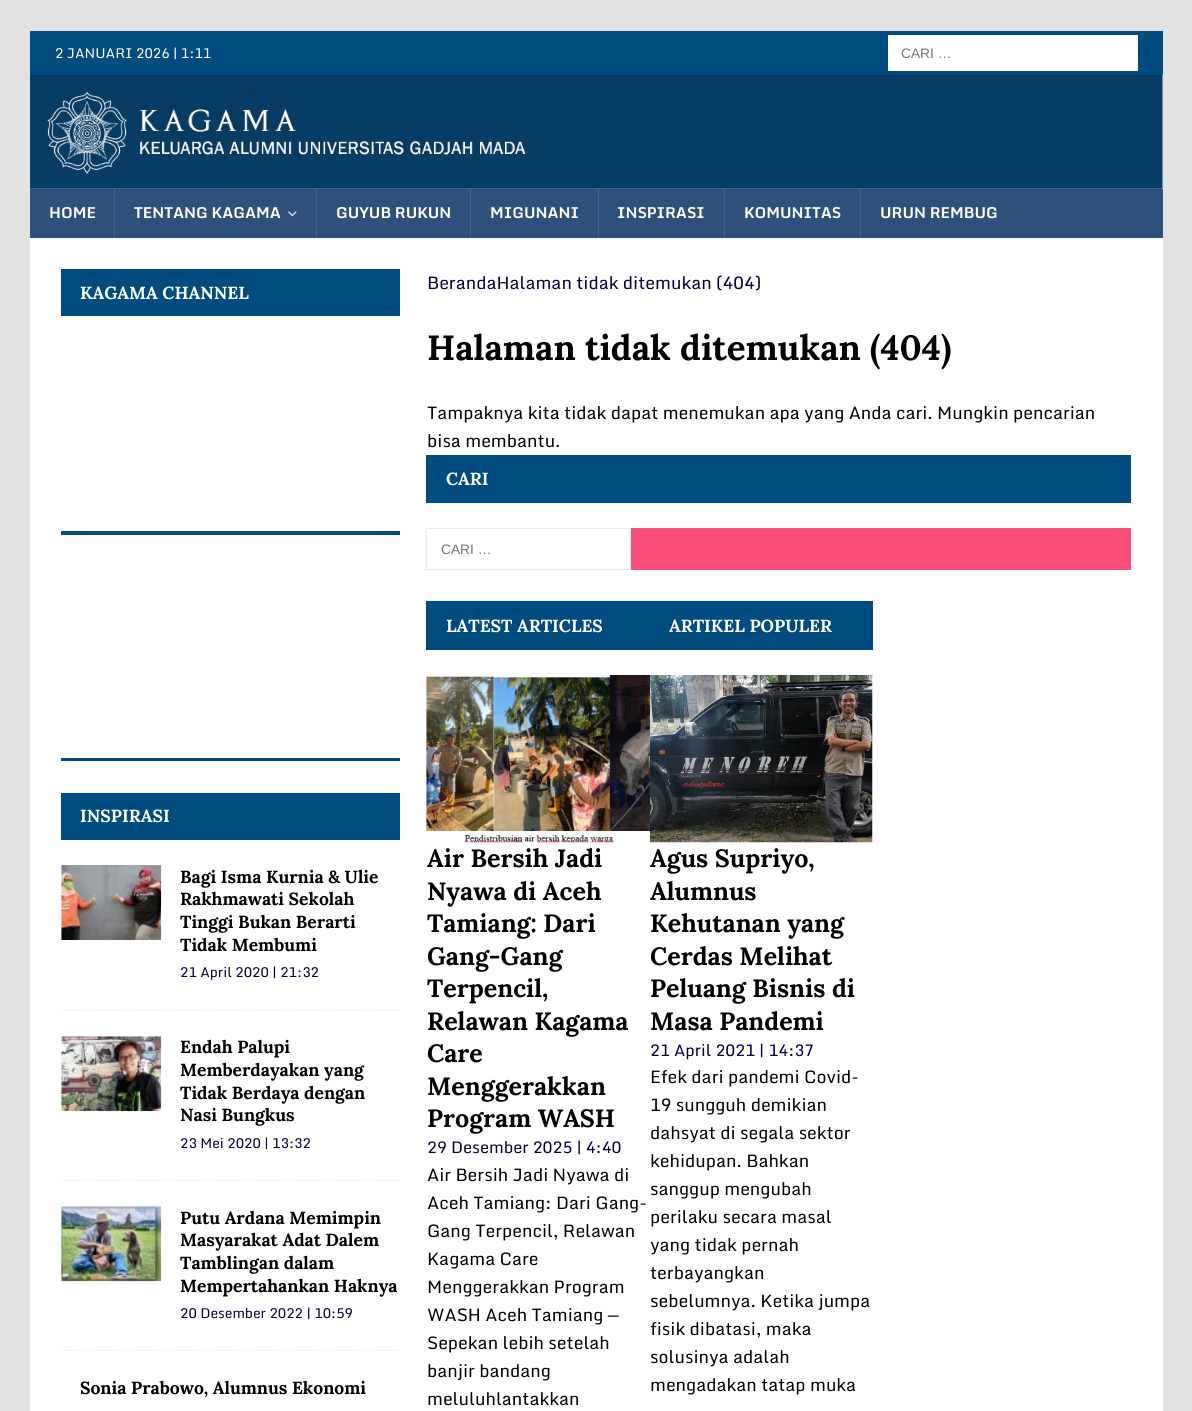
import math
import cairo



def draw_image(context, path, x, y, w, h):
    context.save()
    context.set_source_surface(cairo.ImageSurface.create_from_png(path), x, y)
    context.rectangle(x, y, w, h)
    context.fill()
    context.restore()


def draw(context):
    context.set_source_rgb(226 / 255, 226 / 255, 226 / 255)
    context.paint()
    context.set_source_rgb(0, 76 / 255, 127 / 255)
    context.rectangle(30, 31, 1133, 44)
    context.fill()
    context.set_source_rgb(1, 1, 1)
    context.rectangle(888, 35, 250, 36)
    context.fill()
    draw_image(context, "images/1.png", 30, 75, 1133, 114)
    context.set_source_rgb(45 / 255, 81 / 255, 122 / 255)
    context.rectangle(30, 189, 1133, 49)
    context.fill()
    context.set_source_rgb(66 / 255, 98 / 255, 135 / 255)
    context.rectangle(114, 189, 1, 49)
    context.fill()
    draw_image(context, "images/2.png", 288, 211, 9, 6)
    context.rectangle(316, 189, 1, 49)
    context.fill()
    context.rectangle(470, 189, 1, 49)
    context.fill()
    context.rectangle(598, 189, 1, 49)
    context.fill()
    context.rectangle(724, 189, 1, 49)
    context.fill()
    context.rectangle(860, 189, 1, 49)
    context.fill()
    context.set_source_rgb(1, 1, 1)
    context.rectangle(30, 238, 1133, 1173)
    context.fill()
    context.set_source_rgb(0, 76 / 255, 127 / 255)
    context.rectangle(61, 269, 339, 47)
    context.fill()
    context.rectangle(61, 531, 339, 4)
    context.fill()
    context.rectangle(61, 758, 339, 3)
    context.fill()
    context.rectangle(61, 793, 339, 47)
    context.fill()
    context.new_path()
    context.move_to(61, 1010.5)
    context.line_to(400, 1010.5)
    context.set_source_rgb(235 / 255, 235 / 255, 235 / 255)
    context.set_line_width(1.2)
    context.set_dash([1.25, 1.25])
    context.stroke()
    draw_image(context, "images/3.png", 61, 865, 101, 75)
    context.new_path()
    context.move_to(61, 1180.5)
    context.line_to(400, 1180.5)
    context.stroke()
    draw_image(context, "images/4.png", 61, 1036, 101, 76)
    context.new_path()
    context.move_to(61, 1350.5)
    context.line_to(400, 1350.5)
    context.stroke()
    draw_image(context, "images/5.png", 61, 1206, 101, 76)
    context.set_source_rgb(0, 76 / 255, 127 / 255)
    context.rectangle(426, 455, 705, 48)
    context.fill()
    context.set_source_rgb(249 / 255, 77 / 255, 123 / 255)
    context.rectangle(631, 528, 500, 42)
    context.fill()
    context.rectangle(426.5, 528.5, 204, 41)
    context.set_source_rgb(235 / 255, 235 / 255, 235 / 255)
    context.set_line_width(1)
    context.set_dash([])
    context.stroke()
    context.set_source_rgb(0, 76 / 255, 127 / 255)
    context.rectangle(426, 601, 447, 49)
    context.fill()
    draw_image(context, "images/6.png", 426, 675, 224, 168)
    draw_image(context, "images/7.png", 650, 675, 223, 168)
    context.select_font_face("Monda")
    context.set_font_size(13.75)
    context.set_source_rgb(1, 1, 1)
    context.move_to(55, 58)
    context.show_text("2 JANUARI 2026 | 1:11")
    context.select_font_face("Liberation Sans")
    context.set_source_rgb(117 / 255, 117 / 255, 117 / 255)
    context.move_to(901, 58)
    context.show_text("CARI …")
    context.select_font_face("Monda", cairo.FontSlant.NORMAL, cairo.FontWeight.BOLD)
    context.set_font_size(15)
    context.set_source_rgb(1, 1, 1)
    context.move_to(49, 218)
    context.show_text("HOME")
    context.move_to(134, 218)
    context.show_text("TENTANG KAGAMA")
    context.move_to(336, 218)
    context.show_text("GUYUB RUKUN")
    context.move_to(490, 218)
    context.show_text("MIGUNANI")
    context.move_to(617, 218)
    context.show_text("INSPIRASI")
    context.move_to(744, 218)
    context.show_text("KOMUNITAS")
    context.move_to(880, 218)
    context.show_text("URUN REMBUG")
    context.select_font_face("Lora", cairo.FontSlant.NORMAL, cairo.FontWeight.BOLD)
    context.set_font_size(17.5)
    context.move_to(80, 299)
    context.show_text("KAGAMA CHANNEL")
    context.move_to(80, 822)
    context.show_text("INSPIRASI")
    context.set_source_rgb(0, 0, 0)
    context.move_to(180, 883)
    context.show_text("Bagi Isma Kurnia & Ulie")
    context.move_to(180, 905)
    context.show_text("Rakhmawati Sekolah")
    context.move_to(180, 928)
    context.show_text("Tinggi Bukan Berarti")
    context.move_to(180, 951)
    context.show_text("Tidak Membumi")
    context.select_font_face("Monda")
    context.set_font_size(13.75)
    context.set_source_rgb(0, 0, 58 / 255)
    context.move_to(180, 977)
    context.show_text("21 April 2020 | 21:32")
    context.select_font_face("Lora", cairo.FontSlant.NORMAL, cairo.FontWeight.BOLD)
    context.set_font_size(17.5)
    context.set_source_rgb(0, 0, 0)
    context.move_to(180, 1053)
    context.show_text("Endah Palupi")
    context.move_to(180, 1076)
    context.show_text("Memberdayakan yang")
    context.move_to(180, 1099)
    context.show_text("Tidak Berdaya dengan")
    context.move_to(180, 1121)
    context.show_text("Nasi Bungkus")
    context.select_font_face("Monda")
    context.set_font_size(13.75)
    context.set_source_rgb(0, 0, 58 / 255)
    context.move_to(180, 1148)
    context.show_text("23 Mei 2020 | 13:32")
    context.select_font_face("Lora", cairo.FontSlant.NORMAL, cairo.FontWeight.BOLD)
    context.set_font_size(17.5)
    context.set_source_rgb(0, 0, 0)
    context.move_to(180, 1224)
    context.show_text("Putu Ardana Memimpin")
    context.move_to(180, 1246)
    context.show_text("Masyarakat Adat Dalem")
    context.move_to(180, 1269)
    context.show_text("Tamblingan dalam")
    context.move_to(180, 1292)
    context.show_text("Mempertahankan Haknya")
    context.select_font_face("Monda")
    context.set_font_size(13.75)
    context.set_source_rgb(0, 0, 58 / 255)
    context.move_to(180, 1318)
    context.show_text("20 Desember 2022 | 10:59")
    context.select_font_face("Lora", cairo.FontSlant.NORMAL, cairo.FontWeight.BOLD)
    context.set_font_size(17.5)
    context.set_source_rgb(0, 0, 0)
    context.move_to(80, 1394)
    context.show_text("Sonia Prabowo, Alumnus Ekonomi")
    context.select_font_face("Monda")
    context.set_source_rgb(0, 0, 58 / 255)
    context.move_to(427, 289)
    context.show_text("BerandaHalaman tidak ditemukan (404)")
    context.select_font_face("Lora", cairo.FontSlant.NORMAL, cairo.FontWeight.BOLD)
    context.set_font_size(35)
    context.set_source_rgb(0, 0, 0)
    context.move_to(427, 360)
    context.show_text("Halaman tidak ditemukan (404)")
    context.select_font_face("Monda")
    context.set_font_size(17.5)
    context.move_to(427, 419)
    context.show_text("Tampaknya kita tidak dapat menemukan apa yang Anda cari. Mungkin pencarian")
    context.move_to(427, 447)
    context.show_text("bisa membantu.")
    context.select_font_face("Lora", cairo.FontSlant.NORMAL, cairo.FontWeight.BOLD)
    context.set_source_rgb(1, 1, 1)
    context.move_to(446, 485)
    context.show_text("CARI")
    context.select_font_face("Liberation Sans")
    context.set_font_size(13.75)
    context.set_source_rgb(117 / 255, 117 / 255, 117 / 255)
    context.move_to(441, 554)
    context.show_text("CARI …")
    context.select_font_face("Lora", cairo.FontSlant.NORMAL, cairo.FontWeight.BOLD)
    context.set_font_size(17.5)
    context.set_source_rgb(1, 1, 1)
    context.move_to(446, 632)
    context.show_text("LATEST ARTICLES")
    context.set_font_size(25)
    context.set_source_rgb(0, 0, 0)
    context.move_to(427, 867)
    context.show_text("Air Bersih Jadi")
    context.move_to(427, 900)
    context.show_text("Nyawa di Aceh")
    context.move_to(427, 932)
    context.show_text("Tamiang: Dari")
    context.move_to(427, 965)
    context.show_text("Gang-Gang")
    context.move_to(427, 997)
    context.show_text("Terpencil,")
    context.move_to(427, 1030)
    context.show_text("Relawan Kagama")
    context.move_to(427, 1062)
    context.show_text("Care")
    context.move_to(427, 1095)
    context.show_text("Menggerakkan")
    context.move_to(427, 1127)
    context.show_text("Program WASH")
    context.select_font_face("Monda")
    context.set_font_size(16.25)
    context.set_source_rgb(0, 0, 58 / 255)
    context.move_to(427, 1153)
    context.show_text("29 Desember 2025 | 4:40")
    context.set_font_size(17.5)
    context.set_source_rgb(0, 0, 0)
    context.move_to(427, 1181)
    context.show_text("Air Bersih Jadi Nyawa di")
    context.move_to(427, 1209)
    context.show_text("Aceh Tamiang: Dari Gang-")
    context.move_to(427, 1237)
    context.show_text("Gang Terpencil, Relawan")
    context.move_to(427, 1265)
    context.show_text("Kagama Care")
    context.move_to(427, 1293)
    context.show_text("Menggerakkan Program")
    context.move_to(427, 1321)
    context.show_text("WASH Aceh Tamiang —")
    context.move_to(427, 1349)
    context.show_text("Sepekan lebih setelah")
    context.move_to(427, 1377)
    context.show_text("banjir bandang")
    context.move_to(427, 1405)
    context.show_text("meluluhlantakkan")
    context.select_font_face("Lora", cairo.FontSlant.NORMAL, cairo.FontWeight.BOLD)
    context.set_source_rgb(1, 1, 1)
    context.move_to(669, 632)
    context.show_text("ARTIKEL POPULER")
    context.set_font_size(25)
    context.set_source_rgb(0, 0, 0)
    context.move_to(650, 867)
    context.show_text("Agus Supriyo,")
    context.move_to(650, 900)
    context.show_text("Alumnus")
    context.move_to(650, 932)
    context.show_text("Kehutanan yang")
    context.move_to(650, 965)
    context.show_text("Cerdas Melihat")
    context.move_to(650, 997)
    context.show_text("Peluang Bisnis di")
    context.move_to(650, 1030)
    context.show_text("Masa Pandemi")
    context.select_font_face("Monda")
    context.set_font_size(16.25)
    context.set_source_rgb(0, 0, 58 / 255)
    context.move_to(650, 1056)
    context.show_text("21 April 2021 | 14:37")
    context.set_font_size(17.5)
    context.set_source_rgb(0, 0, 0)
    context.move_to(650, 1083)
    context.show_text("Efek dari pandemi Covid-")
    context.move_to(650, 1111)
    context.show_text("19 sungguh demikian")
    context.move_to(650, 1139)
    context.show_text("dahsyat di segala sektor")
    context.move_to(650, 1167)
    context.show_text("kehidupan. Bahkan")
    context.move_to(650, 1195)
    context.show_text("sanggup mengubah")
    context.move_to(650, 1223)
    context.show_text("perilaku secara masal")
    context.move_to(650, 1251)
    context.show_text("yang tidak pernah")
    context.move_to(650, 1279)
    context.show_text("terbayangkan")
    context.move_to(650, 1307)
    context.show_text("sebelumnya. Ketika jumpa")
    context.move_to(650, 1335)
    context.show_text("fisik dibatasi, maka")
    context.move_to(650, 1363)
    context.show_text("solusinya adalah")
    context.move_to(650, 1391)
    context.show_text("mengadakan tatap muka")


surface = cairo.ImageSurface(cairo.Format.RGB24, 1192, 1411)
context = cairo.Context(surface)
options = cairo.FontOptions()
options.set_hint_metrics(cairo.HintMetrics.OFF)
options.set_hint_style(cairo.HintStyle.NONE)
context.set_font_options(options)
context.set_miter_limit(4)
draw(context)
surface.write_to_png("out.png")
